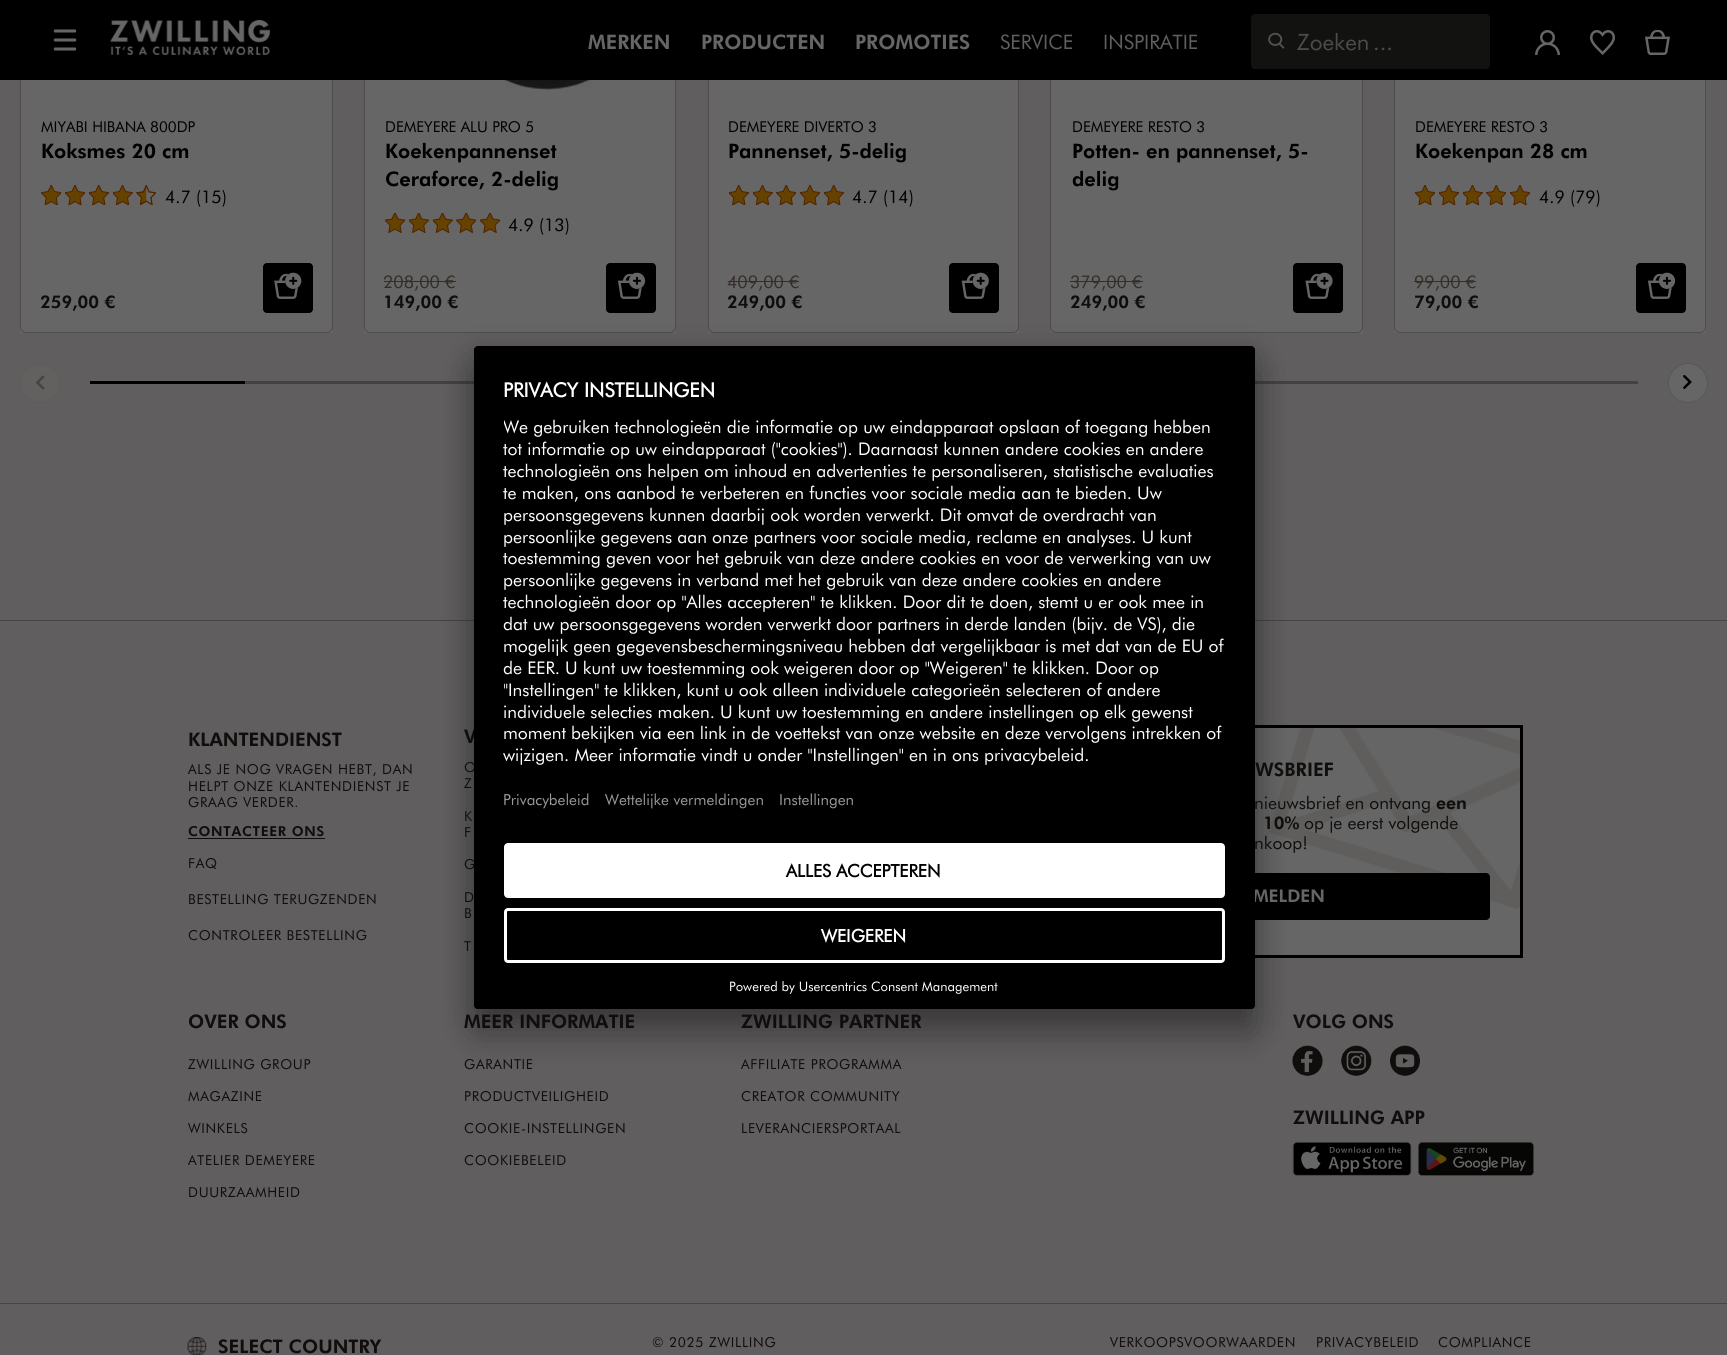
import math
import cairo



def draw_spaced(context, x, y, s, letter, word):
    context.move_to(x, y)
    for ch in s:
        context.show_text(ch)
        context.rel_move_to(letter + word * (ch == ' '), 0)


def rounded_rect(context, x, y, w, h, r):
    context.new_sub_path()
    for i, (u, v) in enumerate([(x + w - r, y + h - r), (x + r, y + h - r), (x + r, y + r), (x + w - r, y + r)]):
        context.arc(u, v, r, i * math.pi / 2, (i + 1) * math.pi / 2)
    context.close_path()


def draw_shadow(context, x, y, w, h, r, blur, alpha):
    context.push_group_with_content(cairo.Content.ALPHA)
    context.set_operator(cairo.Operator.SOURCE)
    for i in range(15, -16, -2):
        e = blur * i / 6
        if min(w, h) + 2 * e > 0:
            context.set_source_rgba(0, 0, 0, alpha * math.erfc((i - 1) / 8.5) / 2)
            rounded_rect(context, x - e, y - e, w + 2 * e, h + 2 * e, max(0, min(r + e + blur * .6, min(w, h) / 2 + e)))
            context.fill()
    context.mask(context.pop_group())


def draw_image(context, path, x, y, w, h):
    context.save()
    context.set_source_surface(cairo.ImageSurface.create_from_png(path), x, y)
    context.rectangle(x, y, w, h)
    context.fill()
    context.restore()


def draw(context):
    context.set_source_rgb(96 / 255, 94 / 255, 94 / 255)
    context.paint()
    context.set_source_rgb(102 / 255, 102 / 255, 102 / 255)
    context.rectangle(20, 80, 313, 253)
    context.fill()
    rounded_rect(context, 20.5, -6.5, 312, 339, 5.5)
    context.set_source_rgb(79 / 255, 76 / 255, 74 / 255)
    context.set_line_width(1)
    context.stroke()
    context.set_source_rgb(102 / 255, 102 / 255, 102 / 255)
    context.rectangle(364, 80, 312, 253)
    context.fill()
    rounded_rect(context, 364.5, -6.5, 311, 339, 5.5)
    context.set_source_rgb(79 / 255, 76 / 255, 74 / 255)
    context.stroke()
    context.set_source_rgb(102 / 255, 102 / 255, 102 / 255)
    context.rectangle(708, 80, 311, 253)
    context.fill()
    rounded_rect(context, 708.5, -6.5, 310, 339, 5.5)
    context.set_source_rgb(79 / 255, 76 / 255, 74 / 255)
    context.stroke()
    context.set_source_rgb(102 / 255, 102 / 255, 102 / 255)
    context.rectangle(1050, 80, 313, 253)
    context.fill()
    rounded_rect(context, 1050.5, -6.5, 312, 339, 5.5)
    context.set_source_rgb(79 / 255, 76 / 255, 74 / 255)
    context.stroke()
    context.set_source_rgb(102 / 255, 102 / 255, 102 / 255)
    context.rectangle(1394, 80, 312, 253)
    context.fill()
    rounded_rect(context, 1394.5, -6.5, 311, 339, 5.5)
    context.set_source_rgb(79 / 255, 76 / 255, 74 / 255)
    context.stroke()
    context.set_source_rgb(0, 0, 0)
    context.rectangle(0, 0, 1727, 80)
    context.fill()
    draw_image(context, "images/1.png", 53, 29, 24, 22)
    draw_image(context, "images/2.png", 110, 20, 160, 35)
    context.set_source_rgb(18 / 255, 18 / 255, 16 / 255)
    rounded_rect(context, 1251, 14, 239, 55, 4)
    context.fill()
    draw_image(context, "images/3.png", 1268, 32, 17, 17)
    draw_image(context, "images/4.png", 1535, 30, 25, 25)
    draw_image(context, "images/5.png", 1590, 30, 25, 25)
    draw_image(context, "images/6.png", 1645, 30, 25, 25)
    draw_image(context, "images/7.png", 41, 185, 20, 20)
    draw_image(context, "images/8.png", 65, 185, 20, 20)
    draw_image(context, "images/9.png", 89, 185, 20, 20)
    draw_image(context, "images/10.png", 113, 185, 20, 20)
    draw_image(context, "images/11.png", 136, 185, 20, 20)
    context.set_source_rgb(0, 0, 0)
    rounded_rect(context, 263, 263, 50, 50, 4)
    context.fill()
    draw_image(context, "images/12.png", 274, 272, 28, 27)
    draw_image(context, "images/13.png", 466, 80, 163, 10)
    draw_image(context, "images/14.png", 385, 213, 20, 20)
    draw_image(context, "images/15.png", 409, 213, 20, 20)
    draw_image(context, "images/16.png", 433, 213, 20, 20)
    draw_image(context, "images/17.png", 456, 213, 20, 20)
    draw_image(context, "images/14.png", 480, 213, 20, 20)
    context.set_source_rgb(52 / 255, 46 / 255, 41 / 255)
    context.rectangle(384, 281, 72, 1)
    context.fill()
    context.set_source_rgb(0, 0, 0)
    rounded_rect(context, 606, 263, 50, 50, 4)
    context.fill()
    draw_image(context, "images/18.png", 618, 272, 28, 27)
    draw_image(context, "images/9.png", 729, 185, 20, 20)
    draw_image(context, "images/10.png", 753, 185, 20, 20)
    draw_image(context, "images/7.png", 776, 185, 20, 20)
    draw_image(context, "images/8.png", 800, 185, 20, 20)
    draw_image(context, "images/9.png", 824, 185, 20, 20)
    context.set_source_rgb(52 / 255, 46 / 255, 41 / 255)
    context.rectangle(728, 281, 71, 1)
    context.fill()
    context.set_source_rgb(0, 0, 0)
    rounded_rect(context, 949, 263, 50, 50, 4)
    context.fill()
    draw_image(context, "images/19.png", 961, 272, 28, 27)
    context.set_source_rgb(52 / 255, 46 / 255, 41 / 255)
    context.rectangle(1070, 281, 73, 1)
    context.fill()
    context.set_source_rgb(0, 0, 0)
    rounded_rect(context, 1293, 263, 50, 50, 4)
    context.fill()
    draw_image(context, "images/20.png", 1305, 272, 28, 27)
    draw_image(context, "images/8.png", 1415, 185, 20, 20)
    draw_image(context, "images/9.png", 1439, 185, 20, 20)
    draw_image(context, "images/10.png", 1463, 185, 20, 20)
    draw_image(context, "images/7.png", 1486, 185, 20, 20)
    draw_image(context, "images/8.png", 1510, 185, 20, 20)
    context.set_source_rgb(52 / 255, 46 / 255, 41 / 255)
    context.rectangle(1414, 281, 62, 1)
    context.fill()
    context.set_source_rgb(0, 0, 0)
    rounded_rect(context, 1636, 263, 50, 50, 4)
    context.fill()
    draw_image(context, "images/18.png", 1648, 272, 28, 27)
    context.set_source_rgb(98 / 255, 97 / 255, 96 / 255)
    context.arc(40, 383, 19.5, 0, 2 * math.pi)
    context.fill_preserve()
    context.set_source_rgb(93 / 255, 92 / 255, 92 / 255)
    context.stroke()
    draw_image(context, "images/21.png", 35, 375, 10, 15)
    context.set_source_rgb(0, 0, 0)
    context.rectangle(90, 381, 155, 3)
    context.fill()
    context.set_source_rgb(68 / 255, 67 / 255, 66 / 255)
    context.rectangle(245, 381, 229, 3)
    context.fill()
    context.rectangle(1255, 381, 383, 3)
    context.fill()
    context.set_source_rgb(102 / 255, 102 / 255, 102 / 255)
    context.arc(1688, 383, 19.5, 0, 2 * math.pi)
    context.fill_preserve()
    context.set_source_rgb(88 / 255, 87 / 255, 87 / 255)
    context.stroke()
    draw_image(context, "images/22.png", 1683, 375, 9, 14)
    context.set_source_rgb(70 / 255, 69 / 255, 68 / 255)
    context.rectangle(0, 620, 1727, 1)
    context.fill()
    context.set_source_rgb(16 / 255, 14 / 255, 12 / 255)
    context.rectangle(188, 838, 137, 1)
    context.fill()
    context.set_source_rgb(102 / 255, 102 / 255, 102 / 255)
    context.rectangle(1255, 728, 265, 227)
    context.fill()
    draw_image(context, "images/23.png", 1268, 728, 252, 182)
    context.rectangle(1021.5, 726.5, 500, 230)
    context.set_source_rgb(0, 0, 0)
    context.set_line_width(3)
    context.stroke()
    rounded_rect(context, 1053.5, 873.5, 436, 46, 3.5)
    context.fill_preserve()
    context.set_line_width(1)
    context.stroke()
    draw_image(context, "images/24.png", 1292, 1045, 31, 31)
    draw_image(context, "images/25.png", 1341, 1045, 31, 31)
    draw_image(context, "images/26.png", 1390, 1045, 30, 31)
    draw_image(context, "images/27.png", 1292, 1142, 120, 34)
    draw_image(context, "images/28.png", 1418, 1142, 116, 34)
    context.set_source_rgb(70 / 255, 69 / 255, 68 / 255)
    context.rectangle(0, 1303, 1727, 1)
    context.fill()
    draw_image(context, "images/29.png", 187, 1337, 20, 18)
    context.set_source_rgb(0, 0, 0)
    draw_shadow(context, 474, 371, 781, 663, 4, 17.5, 0.3)
    draw_shadow(context, 474, 353, 781, 662, 4, 16, 0.22)
    context.select_font_face("Futura", cairo.FontSlant.NORMAL, cairo.FontWeight.BOLD)
    context.set_font_size(20)
    context.set_source_rgb(102 / 255, 102 / 255, 102 / 255)
    context.move_to(588, 49)
    context.show_text("MERKEN")
    context.move_to(701, 49)
    context.show_text("PRODUCTEN")
    context.move_to(855, 49)
    context.show_text("PROMOTIES")
    context.select_font_face("Futura")
    context.set_source_rgb(96 / 255, 94 / 255, 94 / 255)
    context.move_to(1000, 49)
    context.show_text("SERVICE")
    context.move_to(1103, 49)
    context.show_text("INSPIRATIE")
    context.set_font_size(22.5)
    context.set_source_rgb(76 / 255, 76 / 255, 76 / 255)
    context.move_to(1297, 50)
    context.show_text("Zoeken")
    context.move_to(1373, 50)
    context.show_text("...")
    context.set_font_size(15)
    context.set_source_rgb(0, 0, 0)
    context.move_to(41, 132)
    context.show_text("MIYABI HIBANA 800DP")
    context.select_font_face("Futura", cairo.FontSlant.NORMAL, cairo.FontWeight.BOLD)
    context.set_font_size(20)
    context.move_to(41, 158)
    context.show_text("Koksmes 20 cm")
    context.select_font_face("Futura")
    context.set_font_size(17.5)
    context.move_to(165, 203)
    context.show_text("4.7 (15)")
    context.select_font_face("Futura", cairo.FontSlant.NORMAL, cairo.FontWeight.BOLD)
    context.set_source_rgb(16 / 255, 14 / 255, 12 / 255)
    context.move_to(40, 308)
    context.show_text("259,00 €")
    context.select_font_face("Futura")
    context.set_font_size(15)
    context.set_source_rgb(0, 0, 0)
    context.move_to(385, 132)
    context.show_text("DEMEYERE ALU PRO 5")
    context.select_font_face("Futura", cairo.FontSlant.NORMAL, cairo.FontWeight.BOLD)
    context.set_font_size(20)
    context.move_to(385, 158)
    context.show_text("Koekenpannenset")
    context.move_to(385, 186)
    context.show_text("Ceraforce, 2-delig")
    context.select_font_face("Futura")
    context.set_font_size(17.5)
    context.move_to(508, 231)
    context.show_text("4.9 (13)")
    context.set_source_rgb(52 / 255, 46 / 255, 41 / 255)
    context.move_to(383, 288)
    context.show_text("208,00 €")
    context.select_font_face("Futura", cairo.FontSlant.NORMAL, cairo.FontWeight.BOLD)
    context.set_source_rgb(16 / 255, 14 / 255, 12 / 255)
    context.move_to(383, 308)
    context.show_text("149,00 €")
    context.select_font_face("Futura")
    context.set_font_size(15)
    context.set_source_rgb(0, 0, 0)
    context.move_to(728, 132)
    context.show_text("DEMEYERE DIVERTO 3")
    context.select_font_face("Futura", cairo.FontSlant.NORMAL, cairo.FontWeight.BOLD)
    context.set_font_size(20)
    context.move_to(728, 158)
    context.show_text("Pannenset, 5-delig")
    context.select_font_face("Futura")
    context.set_font_size(17.5)
    context.move_to(852, 203)
    context.show_text("4.7 (14)")
    context.set_source_rgb(52 / 255, 46 / 255, 41 / 255)
    context.move_to(727, 288)
    context.show_text("409,00 €")
    context.select_font_face("Futura", cairo.FontSlant.NORMAL, cairo.FontWeight.BOLD)
    context.set_source_rgb(16 / 255, 14 / 255, 12 / 255)
    context.move_to(727, 308)
    context.show_text("249,00 €")
    context.select_font_face("Futura")
    context.set_font_size(15)
    context.set_source_rgb(0, 0, 0)
    context.move_to(1072, 132)
    context.show_text("DEMEYERE RESTO 3")
    context.select_font_face("Futura", cairo.FontSlant.NORMAL, cairo.FontWeight.BOLD)
    context.set_font_size(20)
    context.move_to(1072, 158)
    context.show_text("Potten- en pannenset, 5-")
    context.move_to(1072, 186)
    context.show_text("delig")
    context.select_font_face("Futura")
    context.set_font_size(17.5)
    context.set_source_rgb(52 / 255, 46 / 255, 41 / 255)
    context.move_to(1070, 288)
    context.show_text("379,00 €")
    context.select_font_face("Futura", cairo.FontSlant.NORMAL, cairo.FontWeight.BOLD)
    context.set_source_rgb(16 / 255, 14 / 255, 12 / 255)
    context.move_to(1070, 308)
    context.show_text("249,00 €")
    context.select_font_face("Futura")
    context.set_font_size(15)
    context.set_source_rgb(0, 0, 0)
    context.move_to(1415, 132)
    context.show_text("DEMEYERE RESTO 3")
    context.select_font_face("Futura", cairo.FontSlant.NORMAL, cairo.FontWeight.BOLD)
    context.set_font_size(20)
    context.move_to(1415, 158)
    context.show_text("Koekenpan 28 cm")
    context.select_font_face("Futura")
    context.set_font_size(17.5)
    context.move_to(1539, 203)
    context.show_text("4.9 (79)")
    context.set_source_rgb(52 / 255, 46 / 255, 41 / 255)
    context.move_to(1414, 288)
    context.show_text("99,00 €")
    context.select_font_face("Futura", cairo.FontSlant.NORMAL, cairo.FontWeight.BOLD)
    context.set_source_rgb(16 / 255, 14 / 255, 12 / 255)
    context.move_to(1414, 308)
    context.show_text("79,00 €")
    context.set_font_size(18.75)
    context.move_to(188, 746)
    context.show_text("KLANTENDIENST")
    context.select_font_face("Futura")
    context.set_font_size(13.75)
    draw_spaced(context, 188, 774, "ALS JE NOG VRAGEN HEBT, DAN", 0.7, 0)
    draw_spaced(context, 188, 791, "HELPT ONZE KLANTENDIENST JE", 0.7, 0)
    draw_spaced(context, 188, 807, "GRAAG VERDER.", 0.7, 0)
    context.select_font_face("Futura", cairo.FontSlant.NORMAL, cairo.FontWeight.BOLD)
    draw_spaced(context, 188, 836, "CONTACTEER ONS", 0.7, 0)
    context.select_font_face("Futura")
    draw_spaced(context, 188, 868, "FAQ", 0.7, 0)
    draw_spaced(context, 188, 904, "BESTELLING TERUGZENDEN", 0.7, 0)
    draw_spaced(context, 188, 940, "CONTROLEER BESTELLING", 0.7, 0)
    context.select_font_face("Futura", cairo.FontSlant.NORMAL, cairo.FontWeight.BOLD)
    context.set_font_size(18.75)
    context.move_to(464, 743)
    context.show_text("V")
    context.select_font_face("Futura")
    context.set_font_size(13.75)
    draw_spaced(context, 464, 772, "O", 0.7, 0)
    draw_spaced(context, 464, 788, "Z", 0.7, 0)
    draw_spaced(context, 464, 821, "K", 0.7, 0)
    draw_spaced(context, 464, 837, "F", 0.7, 0)
    draw_spaced(context, 464, 869, "G", 0.7, 0)
    draw_spaced(context, 464, 902, "D", 0.7, 0)
    draw_spaced(context, 464, 918, "B", 0.7, 0)
    draw_spaced(context, 464, 951, "T", 0.7, 0)
    context.select_font_face("Futura", cairo.FontSlant.NORMAL, cairo.FontWeight.BOLD)
    context.set_font_size(18.75)
    context.move_to(1255, 776)
    context.show_text("WSBRIEF")
    context.select_font_face("Futura")
    context.set_font_size(17.5)
    context.move_to(1254, 809)
    context.show_text("nieuwsbrief en ontvang")
    context.select_font_face("Futura", cairo.FontSlant.NORMAL, cairo.FontWeight.BOLD)
    context.move_to(1436, 809)
    context.show_text("een")
    context.move_to(1263, 829)
    context.show_text("10%")
    context.select_font_face("Futura")
    context.move_to(1304, 829)
    context.show_text("op je eerst volgende")
    context.move_to(1254, 849)
    context.show_text("nkoop!")
    context.select_font_face("Futura", cairo.FontSlant.NORMAL, cairo.FontWeight.BOLD)
    context.set_source_rgb(102 / 255, 102 / 255, 102 / 255)
    context.move_to(1253, 902)
    context.show_text("MELDEN")
    context.set_font_size(18.75)
    context.set_source_rgb(16 / 255, 14 / 255, 12 / 255)
    context.move_to(188, 1028)
    context.show_text("OVER ONS")
    context.select_font_face("Futura")
    context.set_font_size(13.75)
    draw_spaced(context, 188, 1069, "ZWILLING GROUP", 0.7, 0)
    draw_spaced(context, 188, 1101, "MAGAZINE", 0.7, 0)
    draw_spaced(context, 188, 1133, "WINKELS", 0.7, 0)
    draw_spaced(context, 188, 1165, "ATELIER DEMEYERE", 0.7, 0)
    draw_spaced(context, 188, 1197, "DUURZAAMHEID", 0.7, 0)
    context.select_font_face("Futura", cairo.FontSlant.NORMAL, cairo.FontWeight.BOLD)
    context.set_font_size(18.75)
    context.move_to(464, 1028)
    context.show_text("MEER INFORMATIE")
    context.select_font_face("Futura")
    context.set_font_size(13.75)
    draw_spaced(context, 464, 1069, "GARANTIE", 0.7, 0)
    draw_spaced(context, 464, 1101, "PRODUCTVEILIGHEID", 0.7, 0)
    draw_spaced(context, 464, 1133, "COOKIE-INSTELLINGEN", 0.7, 0)
    draw_spaced(context, 464, 1165, "COOKIEBELEID", 0.7, 0)
    context.select_font_face("Futura", cairo.FontSlant.NORMAL, cairo.FontWeight.BOLD)
    context.set_font_size(18.75)
    context.move_to(741, 1028)
    context.show_text("ZWILLING PARTNER")
    context.select_font_face("Futura")
    context.set_font_size(13.75)
    draw_spaced(context, 741, 1069, "AFFILIATE PROGRAMMA", 0.7, 0)
    draw_spaced(context, 741, 1101, "CREATOR COMMUNITY", 0.7, 0)
    draw_spaced(context, 741, 1133, "LEVERANCIERSPORTAAL", 0.7, 0)
    context.select_font_face("Futura", cairo.FontSlant.NORMAL, cairo.FontWeight.BOLD)
    context.set_font_size(18.75)
    context.move_to(1293, 1028)
    context.show_text("VOLG ONS")
    context.move_to(1293, 1124)
    context.show_text("ZWILLING APP")
    context.move_to(218, 1353)
    context.show_text("SELECT COUNTRY")
    context.select_font_face("Futura")
    context.set_font_size(13.75)
    draw_spaced(context, 652, 1347, "© 2025 ZWILLING", 0.7, 0)
    draw_spaced(context, 1110, 1347, "VERKOOPSVOORWAARDEN", 0.7, 0)
    draw_spaced(context, 1316, 1347, "PRIVACYBELEID", 0.7, 0)
    draw_spaced(context, 1438, 1347, "COMPLIANCE", 0.7, 0)
    context.set_source_rgb(0, 0, 0)
    rounded_rect(context, 474, 346, 781, 663, 4)
    context.fill()
    context.save()
    context.new_path()
    context.move_to(478, 346)
    context.line_to(1251, 346)
    context.curve_to(1253, 346, 1255, 348, 1255, 350)
    context.line_to(1255, 828)
    context.line_to(474, 828)
    context.line_to(474, 350)
    context.curve_to(474, 348, 476, 346, 478, 346)
    context.close_path()
    context.clip()
    context.rectangle(474, 348, 781, 480)
    context.fill()
    context.restore()
    context.select_font_face("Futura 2", cairo.FontSlant.NORMAL, cairo.FontWeight.BOLD)
    context.set_font_size(19.75)
    context.set_source_rgb(1, 1, 1)
    context.move_to(503, 397)
    context.show_text("PRIVACY INSTELLINGEN")
    context.save()
    context.rectangle(504, 411, 721, 360)
    context.clip()
    context.select_font_face("Futura")
    context.set_font_size(17.5)
    context.move_to(503, 433)
    context.show_text("We gebruiken technologieën die informatie op uw eindapparaat opslaan of toegang hebben")
    context.restore()
    context.select_font_face("Futura")
    context.set_font_size(17.5)
    context.move_to(503, 455)
    context.show_text("tot informatie op uw eindapparaat (\"cookies\"). Daarnaast kunnen andere cookies en andere")
    context.move_to(503, 477)
    context.show_text("technologieën ons helpen om inhoud en advertenties te personaliseren, statistische evaluaties")
    context.move_to(503, 499)
    context.show_text("te maken, ons aanbod te verbeteren en functies voor sociale media aan te bieden. Uw")
    context.move_to(503, 521)
    context.show_text("persoonsgegevens kunnen daarbij ook worden verwerkt. Dit omvat de overdracht van")
    context.move_to(503, 543)
    context.show_text("persoonlijke gegevens aan onze partners voor sociale media, reclame en analyses. U kunt")
    context.move_to(503, 564)
    context.show_text("toestemming geven voor het gebruik van deze andere cookies en voor de verwerking van uw")
    context.move_to(503, 586)
    context.show_text("persoonlijke gegevens in verband met het gebruik van deze andere cookies en andere")
    context.move_to(503, 608)
    context.show_text("technologieën door op \"Alles accepteren\" te klikken. Door dit te doen, stemt u er ook mee in")
    context.move_to(503, 630)
    context.show_text("dat uw persoonsgegevens worden verwerkt door partners in derde landen (bijv. de VS), die")
    context.move_to(503, 652)
    context.show_text("mogelijk geen gegevensbeschermingsniveau hebben dat vergelijkbaar is met dat van de EU of")
    context.move_to(503, 674)
    context.show_text("de EER. U kunt uw toestemming ook weigeren door op \"Weigeren\" te klikken. Door op")
    context.save()
    context.rectangle(504, 411, 721, 360)
    context.clip()
    context.move_to(503, 696)
    context.show_text("\"Instellingen\" te klikken, kunt u ook alleen individuele categorieën selecteren of andere")
    context.restore()
    context.move_to(503, 718)
    context.show_text("individuele selecties maken. U kunt uw toestemming en andere instellingen op elk gewenst")
    context.move_to(503, 739)
    context.show_text("moment bekijken via een link in de voettekst van onze website en deze vervolgens intrekken of")
    context.move_to(503, 761)
    context.show_text("wijzigen. Meer informatie vindt u onder \"Instellingen\" en in ons privacybeleid.")
    context.set_font_size(15.25)
    context.set_source_rgb(153 / 255, 153 / 255, 153 / 255)
    context.move_to(503, 805)
    context.show_text("Privacybeleid")
    context.move_to(605, 805)
    context.show_text("Wettelijke vermeldingen")
    context.move_to(779, 805)
    context.show_text("Instellingen")
    context.set_source_rgb(0, 0, 0)
    context.new_path()
    context.move_to(474, 828)
    context.line_to(1255, 828)
    context.line_to(1255, 1005)
    context.curve_to(1255, 1007, 1253, 1009, 1251, 1009)
    context.line_to(478, 1009)
    context.curve_to(476, 1009, 474, 1007, 474, 1005)
    context.close_path()
    context.fill()
    context.set_source_rgb(1, 1, 1)
    rounded_rect(context, 505.5, 844.5, 718, 52, 2.5)
    context.fill_preserve()
    context.set_line_width(3)
    context.stroke()
    context.select_font_face("Futura 2", cairo.FontSlant.NORMAL, cairo.FontWeight.BOLD)
    context.set_font_size(17.5)
    context.set_source_rgb(0, 0, 0)
    context.move_to(786, 877)
    context.show_text("ALLES ACCEPTEREN")
    rounded_rect(context, 505.5, 909.5, 718, 52, 2.5)
    context.set_source_rgb(1, 1, 1)
    context.stroke()
    context.move_to(821, 942)
    context.show_text("WEIGEREN")
    context.select_font_face("Futura")
    context.set_font_size(13.1)
    context.move_to(729, 991)
    context.show_text("Powered by Usercentrics Consent Management")


surface = cairo.ImageSurface(cairo.Format.RGB24, 1727, 1355)
context = cairo.Context(surface)
options = cairo.FontOptions()
options.set_hint_metrics(cairo.HintMetrics.OFF)
options.set_hint_style(cairo.HintStyle.NONE)
context.set_font_options(options)
context.set_miter_limit(4)
draw(context)
surface.write_to_png("out.png")
